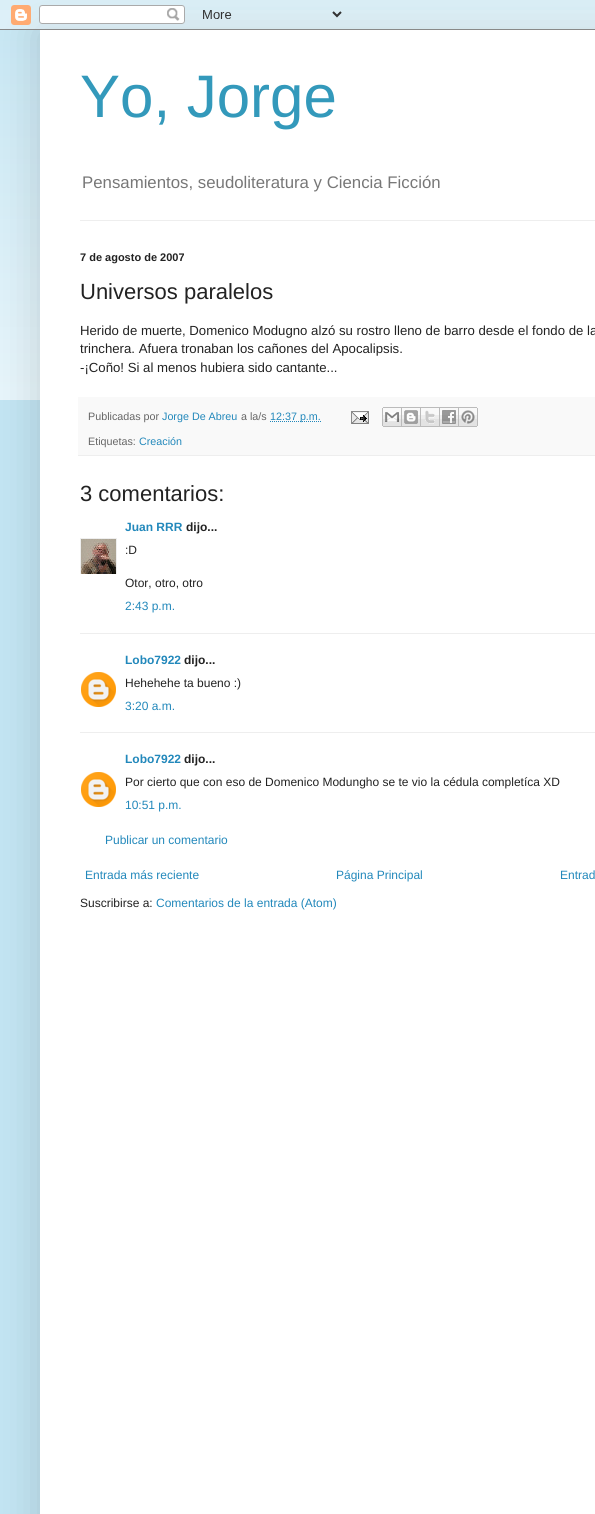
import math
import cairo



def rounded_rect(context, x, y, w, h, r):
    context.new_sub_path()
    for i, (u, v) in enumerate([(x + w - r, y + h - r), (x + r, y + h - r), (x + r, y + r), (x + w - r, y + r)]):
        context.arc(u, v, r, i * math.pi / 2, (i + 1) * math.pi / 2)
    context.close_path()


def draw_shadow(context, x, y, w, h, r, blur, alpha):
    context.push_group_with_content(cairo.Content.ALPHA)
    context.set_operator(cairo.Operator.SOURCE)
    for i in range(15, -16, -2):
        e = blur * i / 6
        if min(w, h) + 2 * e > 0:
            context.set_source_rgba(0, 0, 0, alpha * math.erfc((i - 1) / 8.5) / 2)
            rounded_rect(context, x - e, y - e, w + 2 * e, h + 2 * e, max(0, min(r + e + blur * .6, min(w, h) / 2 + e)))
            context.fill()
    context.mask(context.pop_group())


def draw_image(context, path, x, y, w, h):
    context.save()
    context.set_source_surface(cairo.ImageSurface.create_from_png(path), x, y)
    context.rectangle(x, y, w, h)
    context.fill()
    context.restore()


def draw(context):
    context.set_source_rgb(194 / 255, 228 / 255, 242 / 255)
    context.paint()
    draw_image(context, "images/2.png", 0, 10, 595, 390)
    context.set_source_rgb(0, 0, 0)
    draw_shadow(context, 40, 30, 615, 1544, 0, 20, 0.15)
    draw_image(context, "images/1.png", 0, 0, 595, 30)
    context.set_source_rgb(1, 1, 1)
    context.rectangle(40, 30, 555, 1484)
    context.fill()
    context.set_source_rgb(238 / 255, 238 / 255, 238 / 255)
    context.rectangle(80, 220, 515, 1)
    context.fill()
    context.set_source_rgb(249 / 255, 249 / 255, 249 / 255)
    context.rectangle(78, 397, 517, 58)
    context.fill()
    context.set_source_rgb(238 / 255, 238 / 255, 238 / 255)
    context.rectangle(78, 455, 517, 1)
    context.fill()
    context.new_path()
    context.move_to(270, 421.5)
    context.line_to(321, 421.5)
    context.set_source_rgb(34 / 255, 136 / 255, 187 / 255)
    context.set_line_width(1)
    context.set_dash([1, 1])
    context.stroke()
    draw_image(context, "images/3.png", 351, 411, 18, 13)
    draw_image(context, "images/4.png", 382, 407, 20, 20)
    draw_image(context, "images/5.png", 402, 407, 19, 20)
    draw_image(context, "images/6.png", 421, 407, 19, 20)
    draw_image(context, "images/7.png", 440, 407, 19, 20)
    draw_image(context, "images/8.png", 459, 407, 19, 20)
    context.save()
    context.rectangle(80, 538, 37, 36)
    context.clip()
    context.rectangle(80.5, 538.5, 36, 36)
    context.set_source_rgb(238 / 255, 238 / 255, 238 / 255)
    context.set_dash([])
    context.stroke()
    context.restore()
    draw_image(context, "images/9.png", 81, 539, 35, 35)
    context.set_source_rgb(238 / 255, 238 / 255, 238 / 255)
    context.rectangle(80, 633, 515, 1)
    context.fill()
    draw_image(context, "images/10.png", 81, 672, 35, 35)
    context.rectangle(80, 732, 515, 1)
    context.fill()
    draw_image(context, "images/10.png", 81, 772, 35, 35)
    context.select_font_face("Liberation Sans")
    context.set_font_size(60)
    context.set_source_rgb(51 / 255, 153 / 255, 187 / 255)
    context.move_to(80, 117)
    context.show_text("Yo, Jorge")
    context.set_font_size(16.8)
    context.set_source_rgb(119 / 255, 119 / 255, 119 / 255)
    context.move_to(82, 188)
    context.show_text("Pensamientos, seudoliteratura y Ciencia Ficción")
    context.select_font_face("Liberation Sans", cairo.FontSlant.NORMAL, cairo.FontWeight.BOLD)
    context.set_font_size(11)
    context.set_source_rgb(34 / 255, 34 / 255, 34 / 255)
    context.move_to(80, 261)
    context.show_text("7 de agosto de 2007")
    context.select_font_face("Liberation Sans")
    context.set_font_size(22)
    context.move_to(80, 299)
    context.show_text("Universos paralelos")
    context.set_font_size(13.2)
    context.move_to(80, 335)
    context.show_text("Herido de muerte, Domenico Modugno alzó su rostro lleno de barro desde el fondo de la")
    context.move_to(80, 353)
    context.show_text("trinchera. Afuera tronaban los cañones del Apocalipsis.")
    context.move_to(80, 372)
    context.show_text("-¡Coño! Si al menos hubiera sido cantante...")
    context.set_font_size(10.75)
    context.set_source_rgb(102 / 255, 102 / 255, 102 / 255)
    context.move_to(88, 420)
    context.show_text("Publicadas por")
    context.set_source_rgb(34 / 255, 136 / 255, 187 / 255)
    context.move_to(162, 420)
    context.show_text("Jorge De Abreu")
    context.set_source_rgb(102 / 255, 102 / 255, 102 / 255)
    context.move_to(241, 420)
    context.show_text("a la/s")
    context.set_source_rgb(34 / 255, 136 / 255, 187 / 255)
    context.move_to(270, 420)
    context.show_text("12:37 p.m.")
    context.set_source_rgb(102 / 255, 102 / 255, 102 / 255)
    context.move_to(88, 445)
    context.show_text("Etiquetas:")
    context.set_source_rgb(34 / 255, 136 / 255, 187 / 255)
    context.move_to(139, 445)
    context.show_text("Creación")
    context.set_font_size(22)
    context.set_source_rgb(34 / 255, 34 / 255, 34 / 255)
    context.move_to(80, 501)
    context.show_text("3 comentarios:")
    context.select_font_face("Liberation Sans", cairo.FontSlant.NORMAL, cairo.FontWeight.BOLD)
    context.set_font_size(12)
    context.set_source_rgb(34 / 255, 136 / 255, 187 / 255)
    context.move_to(125, 531)
    context.show_text("Juan RRR")
    context.set_source_rgb(34 / 255, 34 / 255, 34 / 255)
    context.move_to(186, 531)
    context.show_text("dijo...")
    context.select_font_face("Liberation Sans")
    context.move_to(125, 554)
    context.show_text(":D")
    context.move_to(125, 587)
    context.show_text("Otor, otro, otro")
    context.set_source_rgb(34 / 255, 136 / 255, 187 / 255)
    context.move_to(125, 610)
    context.show_text("2:43 p.m.")
    context.select_font_face("Liberation Sans", cairo.FontSlant.NORMAL, cairo.FontWeight.BOLD)
    context.move_to(125, 664)
    context.show_text("Lobo7922")
    context.set_source_rgb(34 / 255, 34 / 255, 34 / 255)
    context.move_to(184, 664)
    context.show_text("dijo...")
    context.select_font_face("Liberation Sans")
    context.move_to(125, 687)
    context.show_text("Hehehehe ta bueno :)")
    context.set_source_rgb(34 / 255, 136 / 255, 187 / 255)
    context.move_to(125, 710)
    context.show_text("3:20 a.m.")
    context.select_font_face("Liberation Sans", cairo.FontSlant.NORMAL, cairo.FontWeight.BOLD)
    context.move_to(125, 763)
    context.show_text("Lobo7922")
    context.set_source_rgb(34 / 255, 34 / 255, 34 / 255)
    context.move_to(184, 763)
    context.show_text("dijo...")
    context.select_font_face("Liberation Sans")
    context.move_to(125, 786)
    context.show_text("Por cierto que con eso de Domenico Modungho se te vio la cédula completíca XD")
    context.set_source_rgb(34 / 255, 136 / 255, 187 / 255)
    context.move_to(125, 809)
    context.show_text("10:51 p.m.")
    context.move_to(105, 844)
    context.show_text("Publicar un comentario")
    context.move_to(85, 879)
    context.show_text("Entrada más reciente")
    context.move_to(336, 879)
    context.show_text("Página Principal")
    context.move_to(560, 879)
    context.show_text("Entrad")
    context.set_source_rgb(34 / 255, 34 / 255, 34 / 255)
    context.move_to(80, 907)
    context.show_text("Suscribirse a:")
    context.set_source_rgb(34 / 255, 136 / 255, 187 / 255)
    context.move_to(156, 907)
    context.show_text("Comentarios de la entrada (Atom)")


surface = cairo.ImageSurface(cairo.Format.RGB24, 595, 1514)
context = cairo.Context(surface)
options = cairo.FontOptions()
options.set_hint_metrics(cairo.HintMetrics.OFF)
options.set_hint_style(cairo.HintStyle.NONE)
context.set_font_options(options)
context.set_miter_limit(4)
draw(context)
surface.write_to_png("out.png")
